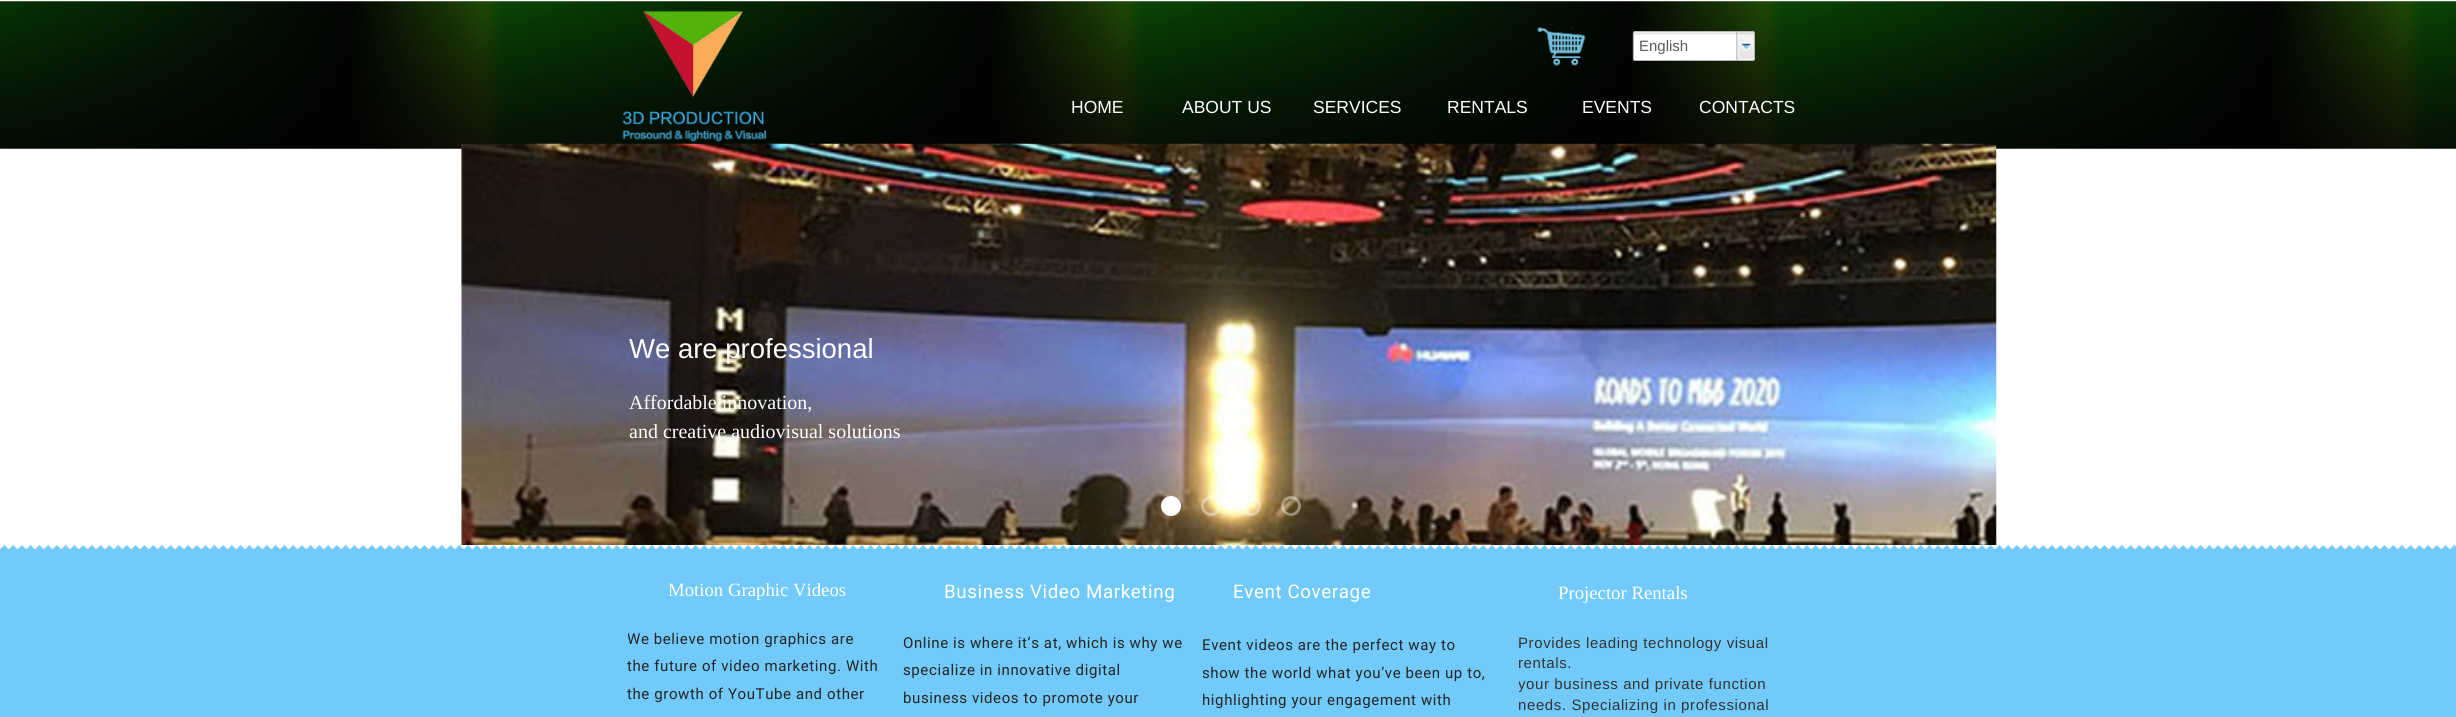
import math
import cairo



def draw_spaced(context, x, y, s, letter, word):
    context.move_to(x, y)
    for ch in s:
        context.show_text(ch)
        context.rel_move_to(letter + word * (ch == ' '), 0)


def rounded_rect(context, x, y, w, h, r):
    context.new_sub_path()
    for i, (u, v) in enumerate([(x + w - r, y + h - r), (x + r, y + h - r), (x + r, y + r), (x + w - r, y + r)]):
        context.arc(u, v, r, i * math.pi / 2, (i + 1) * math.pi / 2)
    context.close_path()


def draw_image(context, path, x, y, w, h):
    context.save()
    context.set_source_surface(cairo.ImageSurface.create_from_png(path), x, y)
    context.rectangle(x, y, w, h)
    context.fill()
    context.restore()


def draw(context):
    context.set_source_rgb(1, 1, 1)
    context.paint()
    draw_image(context, "images/1.png", 0, 1, 2456, 148)
    draw_image(context, "images/2.png", 622, 11, 144, 131)
    draw_image(context, "images/3.png", 1537, 27, 49, 39)
    context.set_source_rgb(1, 1, 1)
    rounded_rect(context, 1633, 31, 122, 30, 2.5)
    context.fill()
    draw_image(context, "images/4.png", 1632, 32, 123, 28)
    rounded_rect(context, 1633.5, 31.5, 121, 29, 2)
    context.set_source_rgb(181 / 255, 181 / 255, 181 / 255)
    context.set_line_width(1)
    context.stroke()
    draw_image(context, "images/5.png", 1736, 32, 18, 28)
    draw_image(context, "images/7.png", 0, 544, 2456, 173)
    draw_image(context, "images/6.png", 461, 143, 1536, 402)
    context.set_source_rgb(1, 1, 1)
    context.arc(1171, 506, 8.5, 0, 2 * math.pi)
    context.fill_preserve()
    context.set_line_width(3)
    context.stroke()
    context.arc(1211, 506, 8.5, 0, 2 * math.pi)
    context.set_source_rgba(1, 1, 1, 0.4)
    context.stroke()
    context.arc(1251, 506, 8.5, 0, 2 * math.pi)
    context.stroke()
    context.arc(1291, 506, 8.5, 0, 2 * math.pi)
    context.stroke()
    context.select_font_face("Liberation Sans")
    context.set_font_size(15)
    context.set_source_rgb(90 / 255, 90 / 255, 90 / 255)
    context.move_to(1639, 51)
    context.show_text("English")
    context.set_font_size(17.5)
    context.set_source_rgb(1, 1, 1)
    context.move_to(1071, 113)
    context.show_text("HOME")
    context.move_to(1182, 113)
    context.show_text("ABOUT US")
    context.move_to(1313, 113)
    context.show_text("SERVICES")
    context.move_to(1447, 113)
    context.show_text("RENTALS")
    context.move_to(1582, 113)
    context.show_text("EVENTS")
    context.move_to(1699, 113)
    context.show_text("CONTACTS")
    context.set_font_size(27.5)
    context.move_to(629, 358)
    context.show_text("We are professional")
    context.select_font_face("Liberation Serif")
    context.set_font_size(20)
    context.move_to(629, 409)
    context.show_text("Affordable innovation,")
    context.move_to(629, 438)
    context.show_text("and creative audiovisual solutions")
    context.save()
    context.rectangle(669, 578, 245, 46)
    context.clip()
    context.set_font_size(18.75)
    context.move_to(668, 596)
    context.show_text("Motion Graphic Videos")
    context.restore()
    context.select_font_face("Roboto")
    context.set_font_size(18.75)
    draw_spaced(context, 944, 598, "Business Video Marketing", 0.6, 0)
    draw_spaced(context, 1233, 598, "Event Coverage", 0.6, 0)
    context.save()
    context.rectangle(1559, 580, 254, 46)
    context.clip()
    context.select_font_face("Liberation Serif")
    context.move_to(1558, 599)
    context.show_text("Projector Rentals")
    context.restore()
    context.save()
    context.rectangle(628, 625, 252, 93)
    context.clip()
    context.set_font_size(15)
    context.set_source_rgb(37 / 255, 37 / 255, 37 / 255)
    draw_spaced(context, 627, 644, "We believe motion graphics are", 0.6, 0)
    context.restore()
    context.set_font_size(15)
    context.set_source_rgb(37 / 255, 37 / 255, 37 / 255)
    draw_spaced(context, 627, 671, "the future of video marketing. With", 0.6, 0)
    draw_spaced(context, 627, 699, "the growth of YouTube and other", 0.6, 0)
    draw_spaced(context, 903, 648, "Online is where it’s at, which is why we", 0.6, 0)
    draw_spaced(context, 903, 675, "specialize in innovative digital", 0.6, 0)
    draw_spaced(context, 903, 703, "business videos to promote your", 0.6, 0)
    draw_spaced(context, 1202, 650, "Event videos are the perfect way to", 0.6, 0)
    context.save()
    context.rectangle(1203, 631, 291, 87)
    context.clip()
    draw_spaced(context, 1202, 678, "show the world what you’ve been up to,", 0.6, 0)
    draw_spaced(context, 1202, 705, "highlighting your engagement with", 0.6, 0)
    context.restore()
    context.select_font_face("Liberation Sans")
    context.set_source_rgb(51 / 255, 51 / 255, 51 / 255)
    draw_spaced(context, 1518, 648, "Provides leading technology visual", 0.6, 0)
    draw_spaced(context, 1518, 668, "rentals.", 0.6, 0)
    context.save()
    context.rectangle(1519, 633, 282, 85)
    context.clip()
    draw_spaced(context, 1518, 689, "your business and private function", 0.6, 0)
    context.restore()
    draw_spaced(context, 1518, 710, "needs. Specializing in professional", 0.6, 0)


surface = cairo.ImageSurface(cairo.Format.RGB24, 2456, 717)
context = cairo.Context(surface)
options = cairo.FontOptions()
options.set_hint_metrics(cairo.HintMetrics.OFF)
options.set_hint_style(cairo.HintStyle.NONE)
context.set_font_options(options)
context.set_miter_limit(4)
draw(context)
surface.write_to_png("out.png")
